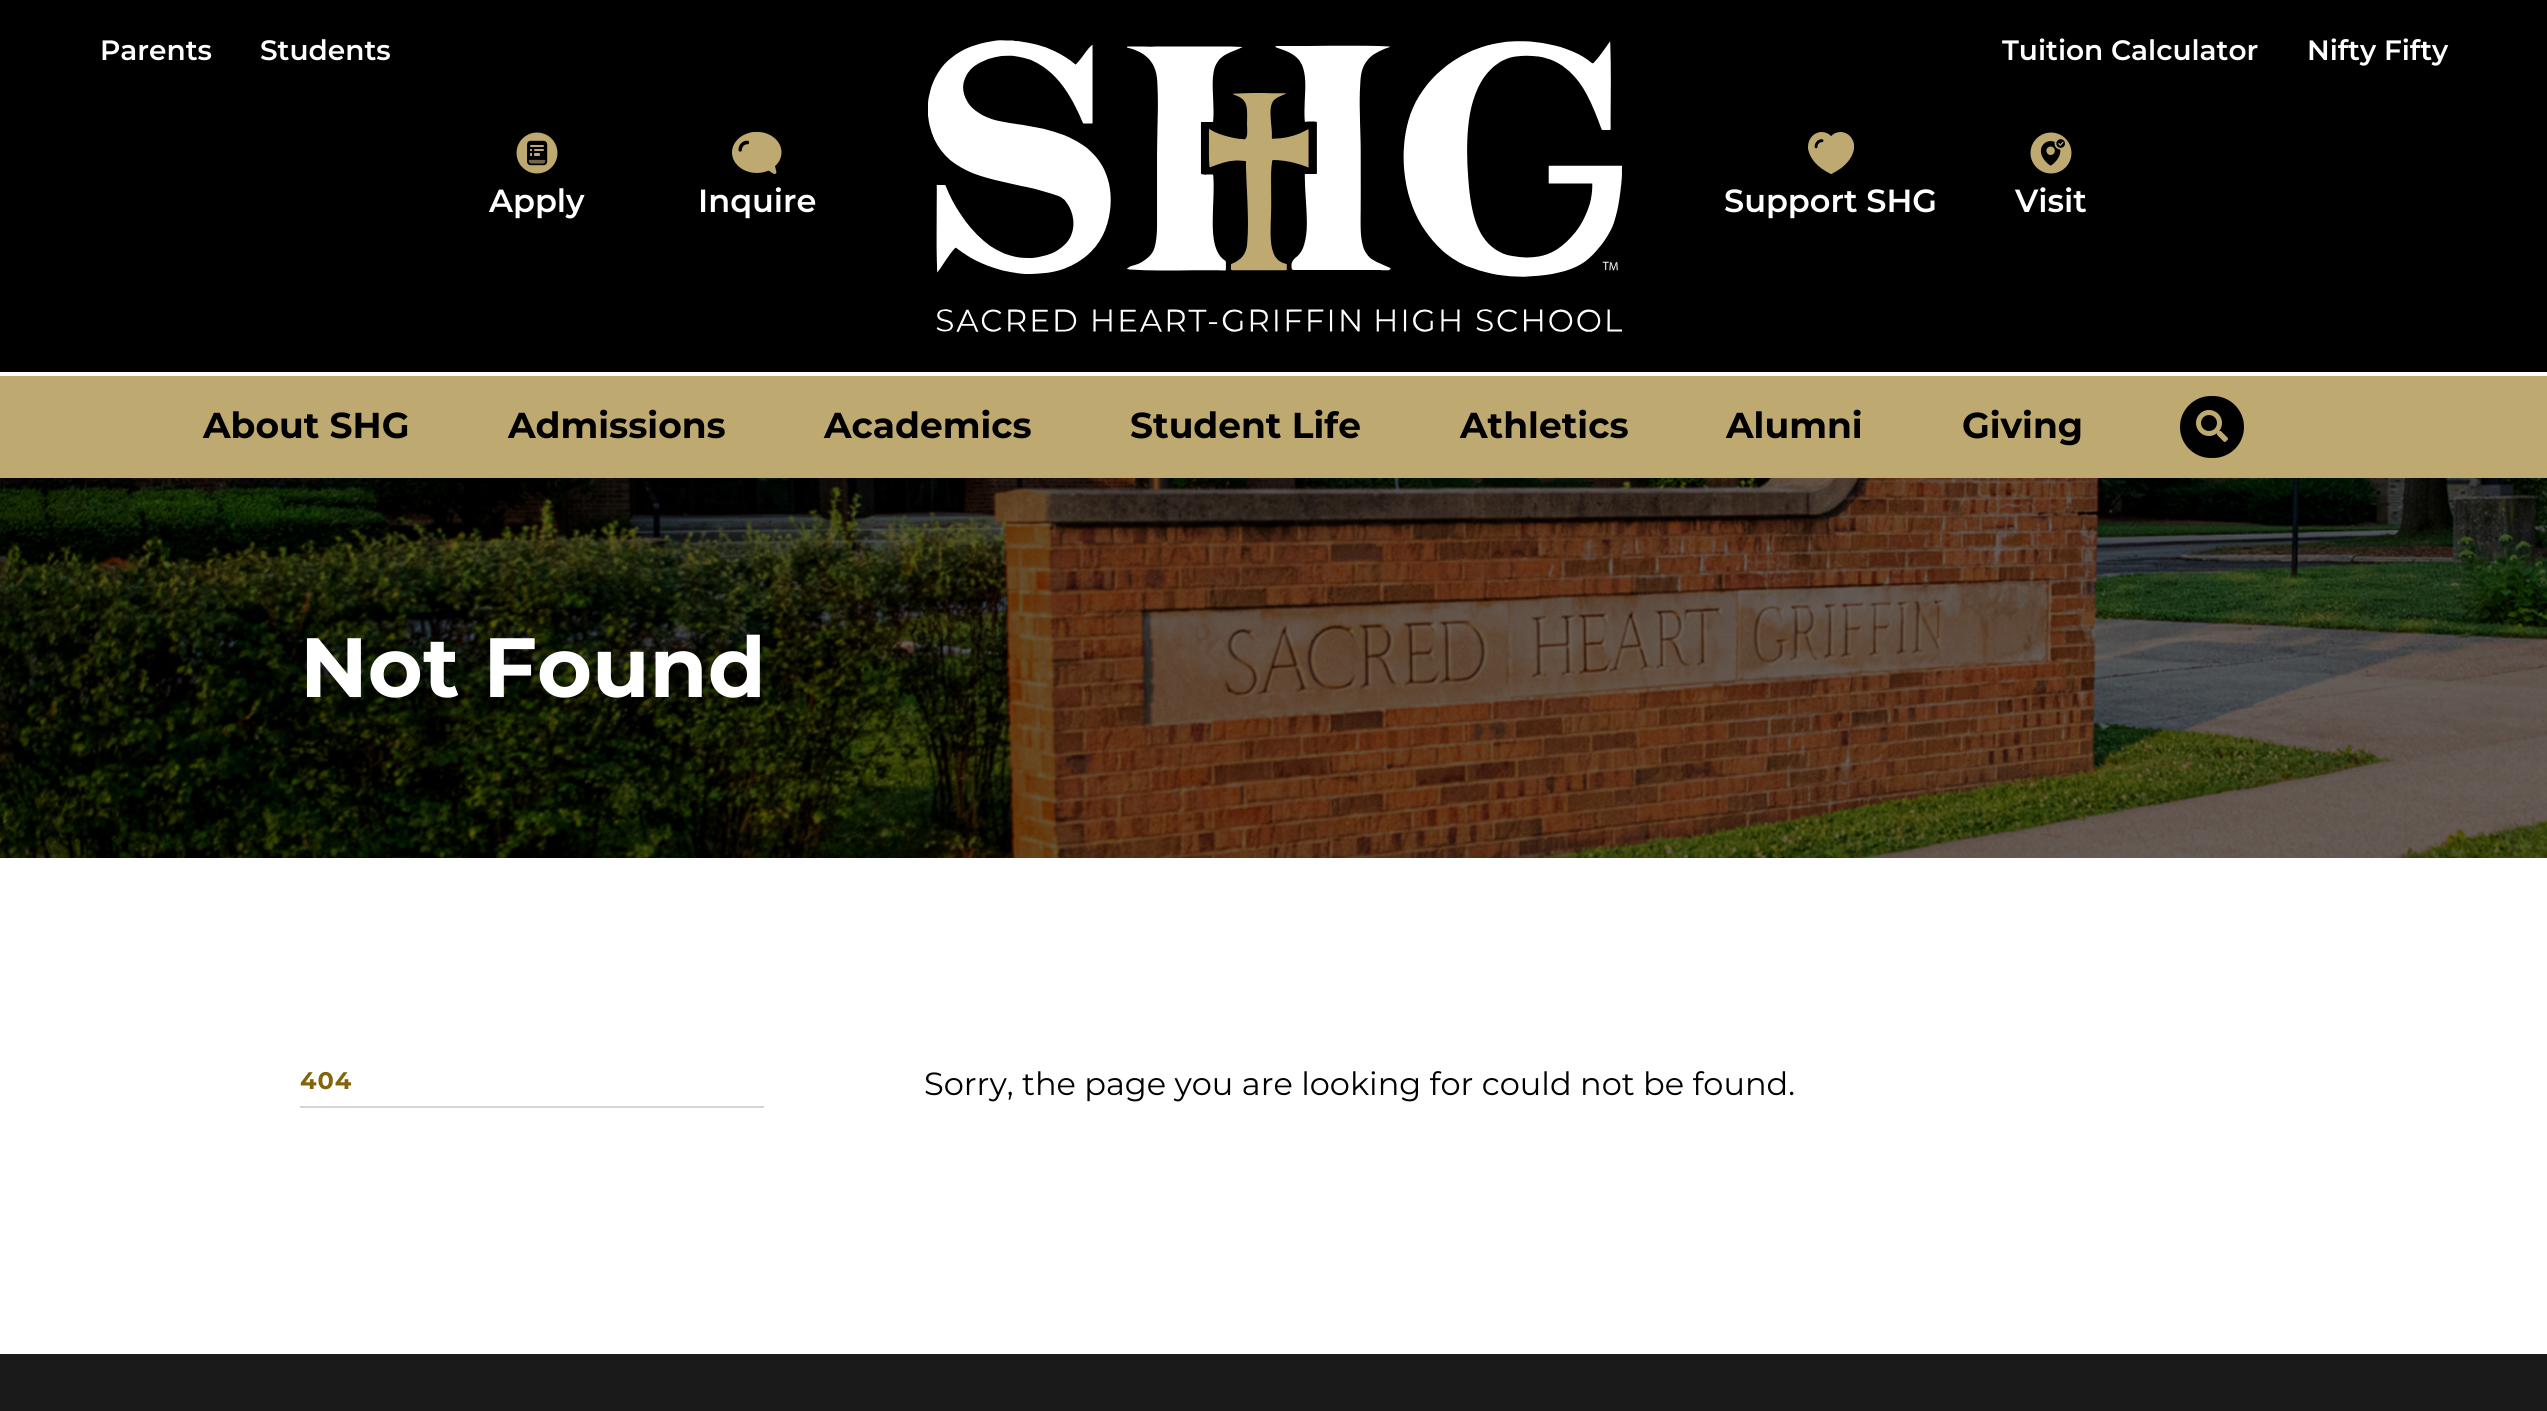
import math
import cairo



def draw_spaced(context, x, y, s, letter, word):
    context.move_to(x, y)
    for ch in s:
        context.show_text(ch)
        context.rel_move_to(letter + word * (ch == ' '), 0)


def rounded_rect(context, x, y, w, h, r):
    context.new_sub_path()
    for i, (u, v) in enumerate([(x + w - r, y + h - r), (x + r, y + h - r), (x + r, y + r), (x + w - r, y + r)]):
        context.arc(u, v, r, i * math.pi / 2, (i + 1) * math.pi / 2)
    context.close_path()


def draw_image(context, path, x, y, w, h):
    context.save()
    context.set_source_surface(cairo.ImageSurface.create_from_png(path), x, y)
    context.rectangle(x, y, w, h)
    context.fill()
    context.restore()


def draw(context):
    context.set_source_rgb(1, 1, 1)
    context.paint()
    context.set_source_rgb(0, 0, 0)
    context.rectangle(0, 0, 2547, 372)
    context.fill()
    draw_image(context, "images/1.png", 516, 132, 42, 42)
    draw_image(context, "images/2.png", 732, 132, 50, 42)
    draw_image(context, "images/3.png", 928, 40, 694, 292)
    draw_image(context, "images/4.png", 1808, 132, 46, 42)
    draw_image(context, "images/5.png", 2030, 132, 42, 42)
    context.set_source_rgb(190 / 255, 169 / 255, 112 / 255)
    context.rectangle(0, 376, 2547, 102)
    context.fill()
    context.set_source_rgb(0, 0, 0)
    rounded_rect(context, 2180, 396, 64, 62, 31)
    context.fill()
    draw_image(context, "images/6.png", 2196, 410, 32, 32)
    draw_image(context, "images/7.png", 0, 478, 2547, 380)
    context.set_source_rgb(213 / 255, 213 / 255, 213 / 255)
    context.rectangle(300, 1106, 464, 2)
    context.fill()
    context.set_source_rgb(26 / 255, 26 / 255, 26 / 255)
    context.rectangle(0, 1354, 2547, 57)
    context.fill()
    context.select_font_face("Montserrat SemiBold")
    context.set_font_size(28)
    context.set_source_rgb(1, 1, 1)
    context.move_to(100, 60)
    context.show_text("Parents")
    context.move_to(260, 60)
    context.show_text("Students")
    context.move_to(2002, 60)
    context.show_text("Tuition Calculator")
    context.move_to(2307, 60)
    context.show_text("Nifty Fifty")
    context.set_font_size(32)
    context.move_to(489, 212)
    context.show_text("Apply")
    context.move_to(698, 212)
    context.show_text("Inquire")
    context.move_to(1724, 212)
    context.show_text("Support SHG")
    context.move_to(2015, 212)
    context.show_text("Visit")
    context.select_font_face("Montserrat", cairo.FontSlant.NORMAL, cairo.FontWeight.BOLD)
    context.set_font_size(36)
    context.set_source_rgb(0, 0, 0)
    context.move_to(203, 438)
    context.show_text("About SHG")
    context.move_to(508, 438)
    context.show_text("Admissions")
    context.move_to(824, 438)
    context.show_text("Academics")
    context.move_to(1130, 438)
    context.show_text("Student Life")
    context.move_to(1460, 438)
    context.show_text("Athletics")
    context.move_to(1726, 438)
    context.show_text("Alumni")
    context.move_to(1962, 438)
    context.show_text("Giving")
    context.set_font_size(84)
    context.set_source_rgb(1, 1, 1)
    context.move_to(300, 697)
    context.show_text("Not Found")
    context.set_font_size(24)
    context.set_source_rgb(131 / 255, 100 / 255, 10 / 255)
    draw_spaced(context, 300, 1089, "404", 1, 0)
    context.select_font_face("Montserrat")
    context.set_font_size(32)
    context.set_source_rgb(0, 0, 0)
    context.move_to(924, 1095)
    context.show_text("Sorry, the page you are looking for could not be found.")


surface = cairo.ImageSurface(cairo.Format.RGB24, 2547, 1411)
context = cairo.Context(surface)
options = cairo.FontOptions()
options.set_hint_metrics(cairo.HintMetrics.OFF)
options.set_hint_style(cairo.HintStyle.NONE)
context.set_font_options(options)
context.set_miter_limit(4)
draw(context)
surface.write_to_png("out.png")
